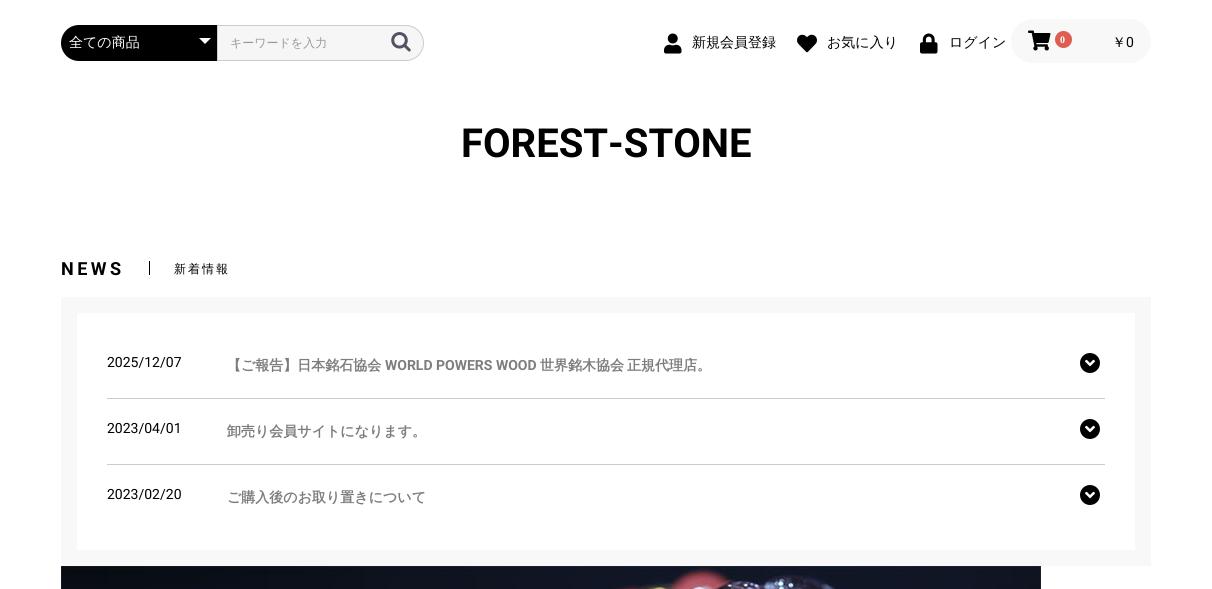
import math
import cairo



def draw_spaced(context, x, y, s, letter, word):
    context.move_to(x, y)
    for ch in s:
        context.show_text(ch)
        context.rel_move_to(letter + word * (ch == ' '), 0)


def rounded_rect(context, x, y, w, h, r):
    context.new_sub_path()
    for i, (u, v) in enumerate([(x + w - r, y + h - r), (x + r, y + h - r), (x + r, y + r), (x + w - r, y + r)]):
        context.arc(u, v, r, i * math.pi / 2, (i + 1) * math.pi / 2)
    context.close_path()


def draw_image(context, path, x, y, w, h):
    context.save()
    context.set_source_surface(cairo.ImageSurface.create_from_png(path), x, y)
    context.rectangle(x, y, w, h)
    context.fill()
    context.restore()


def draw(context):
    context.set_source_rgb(1, 1, 1)
    context.paint()
    context.set_source_rgb(0, 0, 0)
    context.new_path()
    context.move_to(79, 25)
    context.line_to(217, 25)
    context.line_to(217, 61)
    context.line_to(79, 61)
    context.curve_to(69, 61, 61, 53, 61, 43)
    context.curve_to(61, 33, 69, 25, 79, 25)
    context.close_path()
    context.fill()
    context.set_source_rgb(1, 1, 1)
    context.new_path()
    context.move_to(199, 38)
    context.line_to(211, 38)
    context.line_to(205, 44)
    context.close_path()
    context.fill()
    context.set_source_rgb(246 / 255, 246 / 255, 246 / 255)
    context.new_path()
    context.move_to(217.5, 25.5)
    context.line_to(406, 25.5)
    context.curve_to(415.5, 25.5, 423.5, 33.5, 423.5, 43)
    context.curve_to(423.5, 52.5, 415.5, 60.5, 406, 60.5)
    context.line_to(217.5, 60.5)
    context.close_path()
    context.fill_preserve()
    context.set_source_rgb(204 / 255, 204 / 255, 204 / 255)
    context.set_line_width(1)
    context.stroke()
    draw_image(context, "images/1.png", 391, 32, 20, 20)
    draw_image(context, "images/2.png", 664, 33, 18, 21)
    draw_image(context, "images/3.png", 797, 34, 20, 19)
    draw_image(context, "images/4.png", 920, 33, 18, 21)
    context.set_source_rgb(248 / 255, 248 / 255, 248 / 255)
    rounded_rect(context, 1011, 19, 140, 44, 22)
    context.fill()
    draw_image(context, "images/5.png", 1028, 30, 23, 21)
    context.set_source_rgb(222 / 255, 93 / 255, 80 / 255)
    context.arc(1063.5, 39.5, 8.5, 0, 2 * math.pi)
    context.fill()
    context.set_source_rgb(0, 0, 0)
    context.rectangle(149, 261, 1, 14)
    context.fill()
    context.rectangle(69, 305, 1074, 253)
    context.set_source_rgb(248 / 255, 248 / 255, 248 / 255)
    context.set_line_width(16)
    context.stroke()
    context.set_source_rgb(204 / 255, 204 / 255, 204 / 255)
    context.rectangle(107, 398, 998, 1)
    context.fill()
    context.set_source_rgb(0, 0, 0)
    context.arc(1090, 363, 10, 0, 2 * math.pi)
    context.fill()
    draw_image(context, "images/6.png", 1085, 359, 10, 8)
    context.set_source_rgb(204 / 255, 204 / 255, 204 / 255)
    context.rectangle(107, 464, 998, 1)
    context.fill()
    context.set_source_rgb(0, 0, 0)
    context.arc(1090, 429, 10, 0, 2 * math.pi)
    context.fill()
    draw_image(context, "images/6.png", 1085, 425, 10, 8)
    context.arc(1090, 495, 10, 0, 2 * math.pi)
    context.fill()
    draw_image(context, "images/6.png", 1085, 491, 10, 8)
    draw_image(context, "images/7.png", 61, 566, 980, 23)
    context.select_font_face("WenQuanYi Zen Hei Medium")
    context.set_font_size(14)
    context.set_source_rgb(1, 1, 1)
    context.move_to(69, 47)
    context.show_text("全ての商品")
    context.set_font_size(12)
    context.set_source_rgb(153 / 255, 153 / 255, 153 / 255)
    context.move_to(230, 47)
    context.show_text("キーワードを入力")
    context.set_font_size(14)
    context.set_source_rgb(0, 0, 0)
    context.move_to(692, 47)
    context.show_text("新規会員登録")
    context.move_to(827, 47)
    context.show_text("お気に入り")
    context.move_to(949, 47)
    context.show_text("ログイン")
    context.select_font_face("Liberation Serif", cairo.FontSlant.NORMAL, cairo.FontWeight.BOLD)
    context.set_font_size(10)
    context.set_source_rgb(1, 1, 1)
    context.move_to(1060, 43)
    context.show_text("0")
    context.select_font_face("WenQuanYi Zen Hei Medium")
    context.set_font_size(14)
    context.set_source_rgb(0, 0, 0)
    context.move_to(1112, 47)
    context.show_text("￥")
    context.select_font_face("Roboto")
    context.move_to(1126, 47)
    context.show_text("0")
    context.select_font_face("Roboto", cairo.FontSlant.NORMAL, cairo.FontWeight.BOLD)
    context.set_font_size(40)
    context.move_to(461, 157)
    context.show_text("FOREST-STONE")
    context.set_font_size(18)
    draw_spaced(context, 61, 275, "NEWS", 3.5, 0)
    context.select_font_face("WenQuanYi Zen Hei Medium")
    context.set_font_size(12)
    draw_spaced(context, 174, 273, "新着情報", 2, 0)
    context.select_font_face("Roboto")
    context.set_font_size(14)
    context.move_to(107, 367)
    context.show_text("2025/12/07")
    context.select_font_face("WenQuanYi Zen Hei", cairo.FontSlant.NORMAL, cairo.FontWeight.BOLD)
    context.set_source_rgb(125 / 255, 125 / 255, 125 / 255)
    context.move_to(227, 370)
    context.show_text("【ご報告】日本銘石協会")
    context.select_font_face("Roboto", cairo.FontSlant.NORMAL, cairo.FontWeight.BOLD)
    context.move_to(385, 370)
    context.show_text("WORLD POWERS WOOD")
    context.select_font_face("WenQuanYi Zen Hei", cairo.FontSlant.NORMAL, cairo.FontWeight.BOLD)
    context.move_to(540, 370)
    context.show_text("世界銘木協会")
    context.move_to(627, 370)
    context.show_text("正規代理店。")
    context.select_font_face("Roboto")
    context.set_source_rgb(0, 0, 0)
    context.move_to(107, 433)
    context.show_text("2023/04/01")
    context.select_font_face("WenQuanYi Zen Hei", cairo.FontSlant.NORMAL, cairo.FontWeight.BOLD)
    context.set_source_rgb(125 / 255, 125 / 255, 125 / 255)
    context.move_to(227, 436)
    context.show_text("卸売り会員サイトになります。")
    context.select_font_face("Roboto")
    context.set_source_rgb(0, 0, 0)
    context.move_to(107, 499)
    context.show_text("2023/02/20")
    context.select_font_face("WenQuanYi Zen Hei", cairo.FontSlant.NORMAL, cairo.FontWeight.BOLD)
    context.set_source_rgb(125 / 255, 125 / 255, 125 / 255)
    context.move_to(227, 502)
    context.show_text("ご購入後のお取り置きについて")


surface = cairo.ImageSurface(cairo.Format.RGB24, 1212, 589)
context = cairo.Context(surface)
options = cairo.FontOptions()
options.set_hint_metrics(cairo.HintMetrics.OFF)
options.set_hint_style(cairo.HintStyle.NONE)
context.set_font_options(options)
context.set_miter_limit(4)
draw(context)
surface.write_to_png("out.png")
